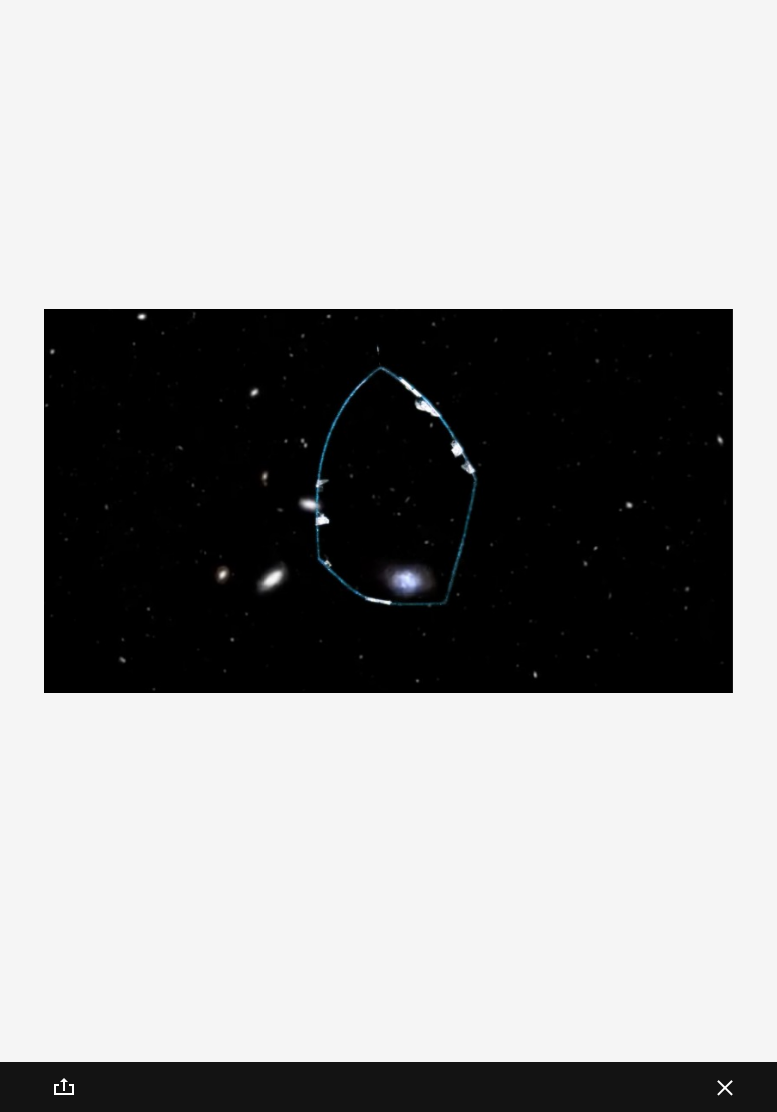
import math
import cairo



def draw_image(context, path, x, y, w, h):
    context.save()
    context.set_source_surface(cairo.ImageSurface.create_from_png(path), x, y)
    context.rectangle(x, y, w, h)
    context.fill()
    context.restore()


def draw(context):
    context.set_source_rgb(245 / 255, 245 / 255, 245 / 255)
    context.paint()
    draw_image(context, "images/1.png", 44, 309, 689, 384)
    context.set_source_rgb(19 / 255, 19 / 255, 19 / 255)
    context.rectangle(0, 1062, 777, 50)
    context.fill()
    draw_image(context, "images/2.png", 54, 1078, 20, 17)
    draw_image(context, "images/3.png", 717, 1080, 16, 16)


surface = cairo.ImageSurface(cairo.Format.RGB24, 777, 1112)
context = cairo.Context(surface)
options = cairo.FontOptions()
options.set_hint_metrics(cairo.HintMetrics.OFF)
options.set_hint_style(cairo.HintStyle.NONE)
context.set_font_options(options)
context.set_miter_limit(4)
draw(context)
surface.write_to_png("out.png")
